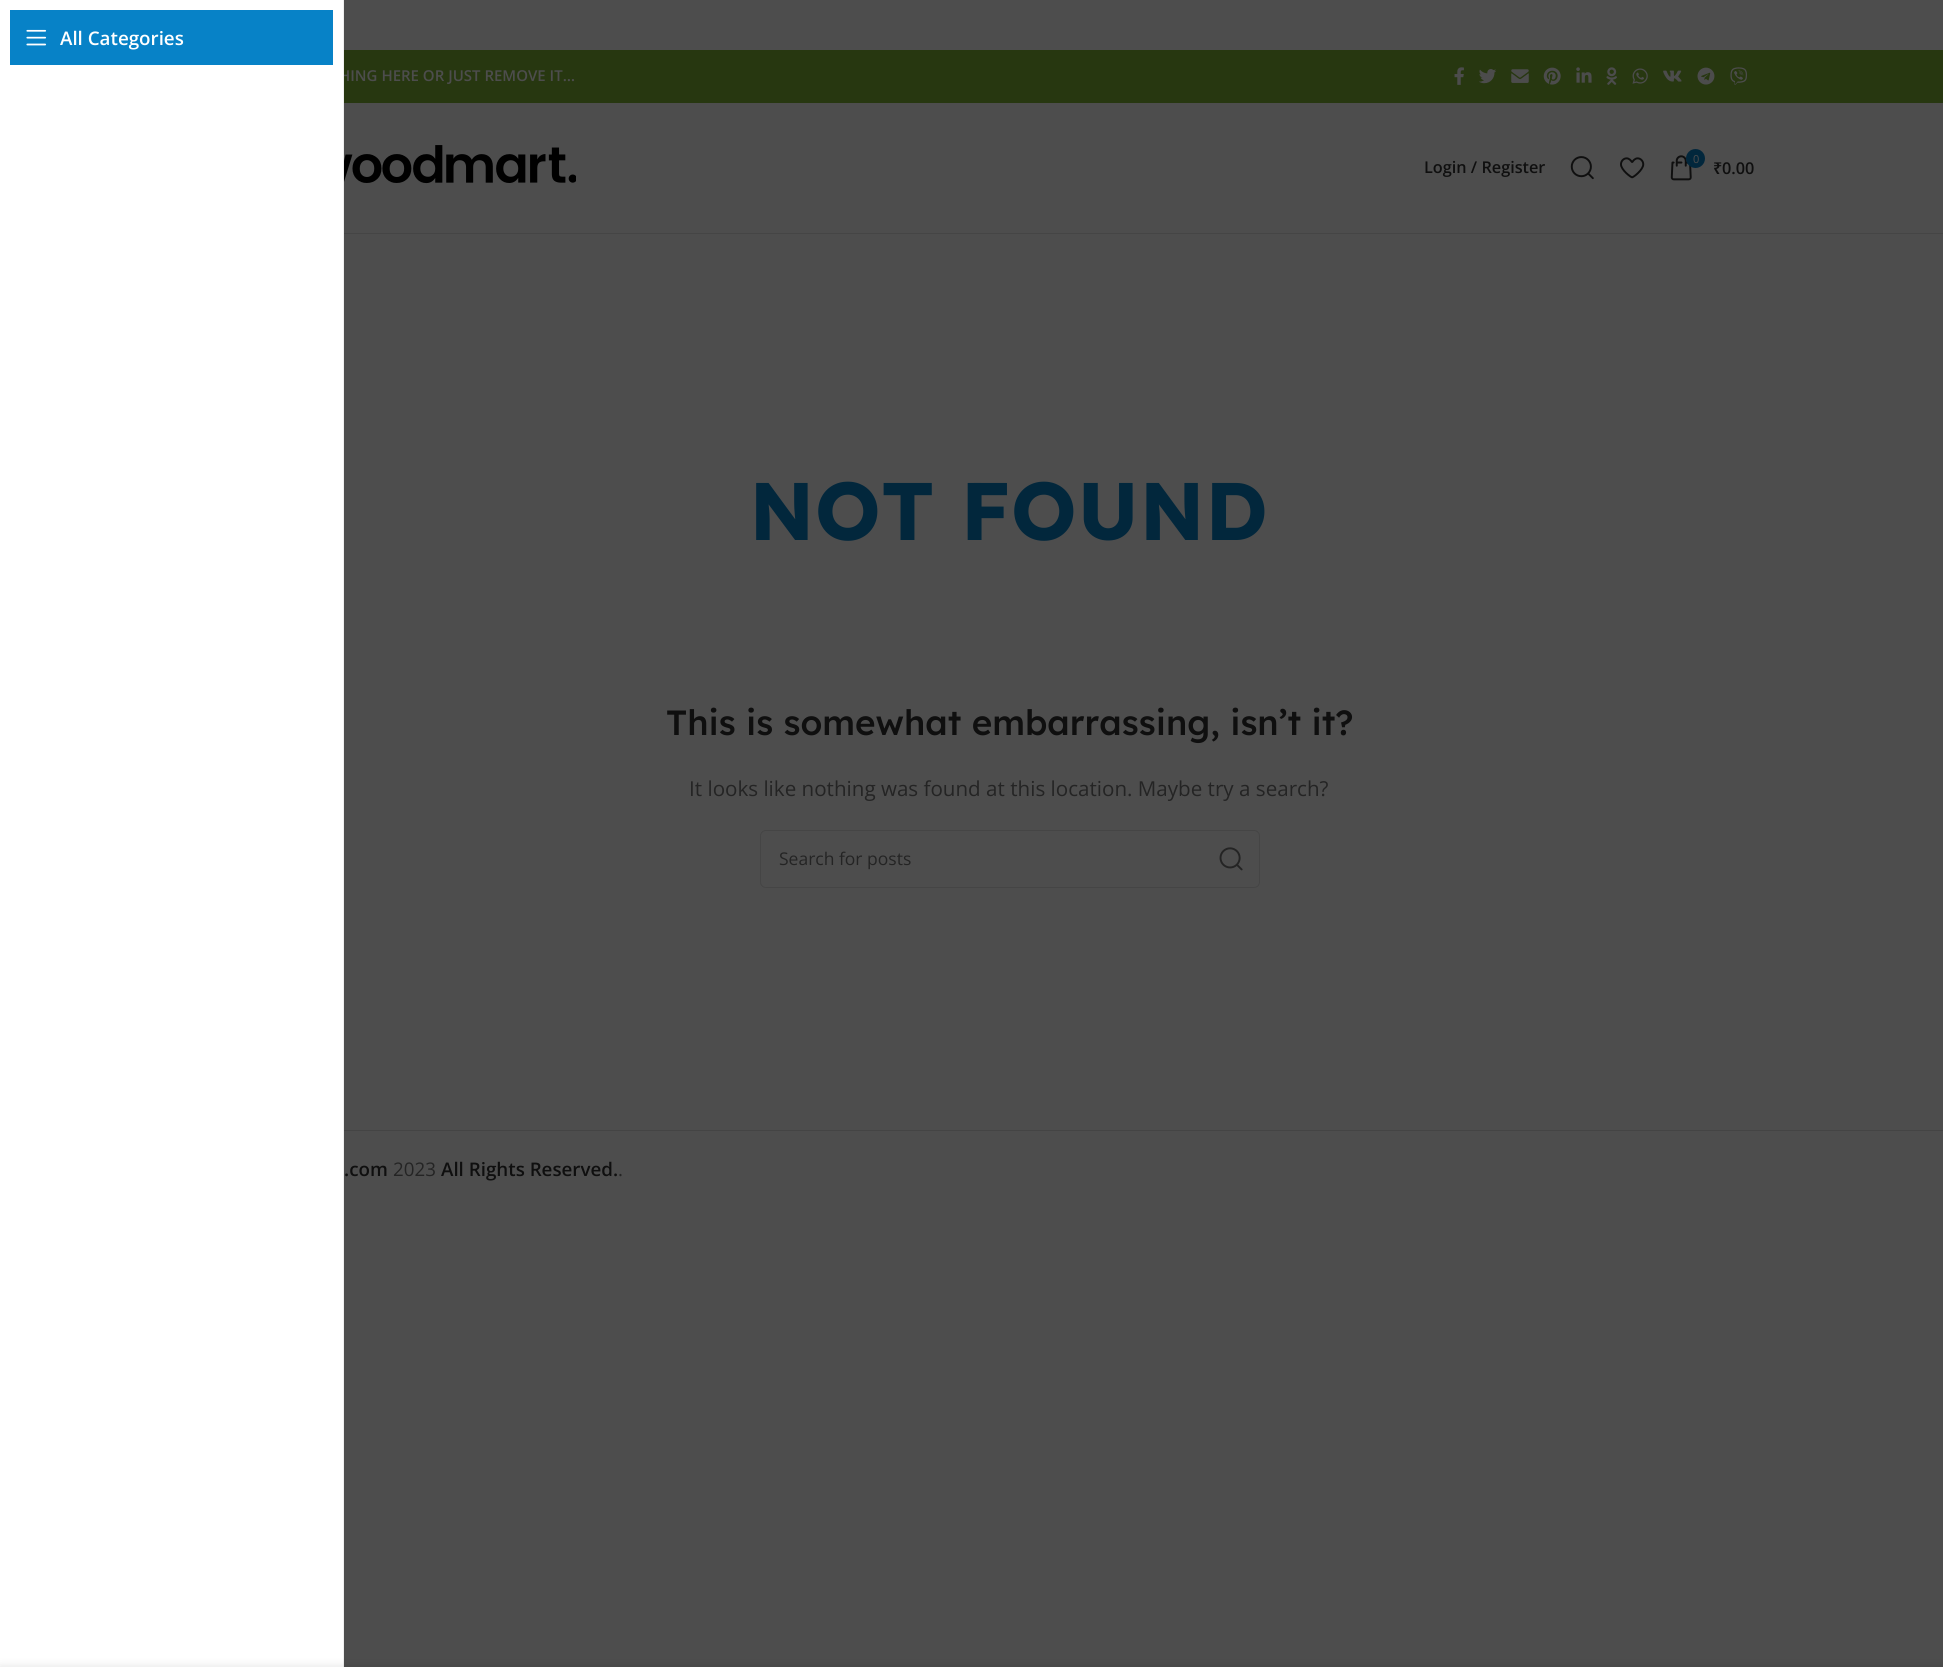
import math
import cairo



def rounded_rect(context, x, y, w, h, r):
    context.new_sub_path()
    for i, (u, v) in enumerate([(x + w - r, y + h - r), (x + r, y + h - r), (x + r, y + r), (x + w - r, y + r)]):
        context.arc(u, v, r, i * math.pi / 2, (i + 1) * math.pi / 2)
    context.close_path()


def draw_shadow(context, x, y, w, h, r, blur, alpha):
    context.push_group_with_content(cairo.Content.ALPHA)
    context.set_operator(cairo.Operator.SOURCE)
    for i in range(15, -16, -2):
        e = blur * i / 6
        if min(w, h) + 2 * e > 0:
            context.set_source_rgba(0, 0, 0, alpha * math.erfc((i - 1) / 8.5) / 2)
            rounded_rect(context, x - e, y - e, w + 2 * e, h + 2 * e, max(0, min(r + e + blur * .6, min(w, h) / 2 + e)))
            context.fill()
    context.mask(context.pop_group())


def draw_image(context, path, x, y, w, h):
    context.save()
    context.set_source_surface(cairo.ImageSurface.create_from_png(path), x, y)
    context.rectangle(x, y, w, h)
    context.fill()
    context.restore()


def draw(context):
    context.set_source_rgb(77 / 255, 77 / 255, 77 / 255)
    context.paint()
    context.set_source_rgb(39 / 255, 55 / 255, 16 / 255)
    context.rectangle(344, 50, 1599, 53)
    context.fill()
    draw_image(context, "images/2.png", 1454, 67, 10, 18)
    draw_image(context, "images/3.png", 1479, 69, 18, 15)
    draw_image(context, "images/4.png", 1511, 69, 18, 14)
    draw_image(context, "images/5.png", 1543, 67, 18, 18)
    draw_image(context, "images/6.png", 1576, 67, 16, 16)
    draw_image(context, "images/7.png", 1606, 67, 11, 18)
    draw_image(context, "images/8.png", 1632, 68, 16, 16)
    draw_image(context, "images/9.png", 1663, 70, 19, 12)
    draw_image(context, "images/10.png", 1697, 67, 18, 18)
    draw_image(context, "images/11.png", 1730, 67, 17, 18)
    context.set_source_rgb(69 / 255, 69 / 255, 69 / 255)
    context.rectangle(344, 233, 1599, 1)
    context.fill()
    draw_image(context, "images/12.png", 344, 145, 232, 39)
    draw_image(context, "images/13.png", 1570, 156, 24, 24)
    draw_image(context, "images/14.png", 1620, 157, 25, 22)
    draw_image(context, "images/15.png", 1670, 155, 22, 26)
    context.set_source_rgb(2 / 255, 39 / 255, 60 / 255)
    context.arc(1695.5, 158.5, 9.5, 0, 2 * math.pi)
    context.fill()
    rounded_rect(context, 760.5, 830.5, 499, 57, 5.5)
    context.set_source_rgb(69 / 255, 69 / 255, 69 / 255)
    context.set_line_width(1)
    context.stroke()
    draw_image(context, "images/16.png", 1219, 847, 24, 24)
    context.set_source_rgb(68 / 255, 68 / 255, 68 / 255)
    context.rectangle(344, 1130, 1599, 1)
    context.fill()
    context.select_font_face("Open Sans SemiBold")
    context.set_font_size(15)
    context.set_source_rgb(77 / 255, 77 / 255, 77 / 255)
    context.move_to(339, 81)
    context.show_text("HING HERE OR JUST REMOVE IT…")
    context.set_source_rgb(1, 1, 1)
    context.rectangle(0, 0, 343, 1667)
    context.fill()
    context.set_source_rgb(7 / 255, 130 / 255, 199 / 255)
    context.rectangle(10, 10, 323, 55)
    context.fill()
    context.set_font_size(18.75)
    context.set_source_rgb(1, 1, 1)
    context.move_to(60, 45)
    context.show_text("All Categories")
    draw_image(context, "images/1.png", 26, 29, 21, 17)
    context.set_source_rgb(239 / 255, 239 / 255, 239 / 255)
    context.rectangle(343, 0, 1, 1667)
    context.fill()
    context.set_font_size(16.25)
    context.set_source_rgb(15 / 255, 15 / 255, 15 / 255)
    context.move_to(1424, 173)
    context.show_text("Login / Register")
    context.select_font_face("Open Sans")
    context.set_font_size(11)
    context.set_source_rgb(77 / 255, 77 / 255, 77 / 255)
    context.move_to(1693, 163)
    context.show_text("0")
    context.select_font_face("Noto Sans SemiBold")
    context.set_font_size(16.25)
    context.set_source_rgb(15 / 255, 15 / 255, 15 / 255)
    context.move_to(1713, 174)
    context.show_text("₹")
    context.select_font_face("Open Sans SemiBold")
    context.move_to(1722, 174)
    context.show_text("0.00")
    context.select_font_face("Lexend Deca", cairo.FontSlant.NORMAL, cairo.FontWeight.BOLD)
    context.set_font_size(81.5)
    context.set_source_rgb(2 / 255, 39 / 255, 60 / 255)
    context.move_to(749, 540)
    context.show_text("NOT FOUND")
    context.select_font_face("Lexend Deca Medium")
    context.set_font_size(35)
    context.set_source_rgb(15 / 255, 15 / 255, 15 / 255)
    context.move_to(666, 735)
    context.show_text("This is somewhat embarrassing, isn’t it?")
    context.select_font_face("Open Sans")
    context.set_font_size(20.6)
    context.set_source_rgb(36 / 255, 36 / 255, 36 / 255)
    context.move_to(689, 796)
    context.show_text("It looks like nothing was found at this location. Maybe try a search?")
    context.set_font_size(17.5)
    context.move_to(779, 865)
    context.show_text("Search for posts")
    context.select_font_face("Open Sans SemiBold")
    context.set_font_size(18.75)
    context.set_source_rgb(15 / 255, 15 / 255, 15 / 255)
    context.move_to(344, 1176)
    context.show_text(".com")
    context.select_font_face("Open Sans")
    context.set_source_rgb(36 / 255, 36 / 255, 36 / 255)
    context.move_to(393, 1176)
    context.show_text("2023")
    context.select_font_face("Open Sans SemiBold")
    context.set_source_rgb(15 / 255, 15 / 255, 15 / 255)
    context.move_to(441, 1176)
    context.show_text("All Rights Reserved.")
    context.select_font_face("Open Sans")
    context.set_source_rgb(36 / 255, 36 / 255, 36 / 255)
    context.move_to(618, 1176)
    context.show_text(".")
    context.set_source_rgb(0, 0, 0)
    draw_shadow(context, 0, 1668, 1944, 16, 0, 5.5, 0.14)


surface = cairo.ImageSurface(cairo.Format.RGB24, 1943, 1667)
context = cairo.Context(surface)
options = cairo.FontOptions()
options.set_hint_metrics(cairo.HintMetrics.OFF)
options.set_hint_style(cairo.HintStyle.NONE)
context.set_font_options(options)
context.set_miter_limit(4)
draw(context)
surface.write_to_png("out.png")
